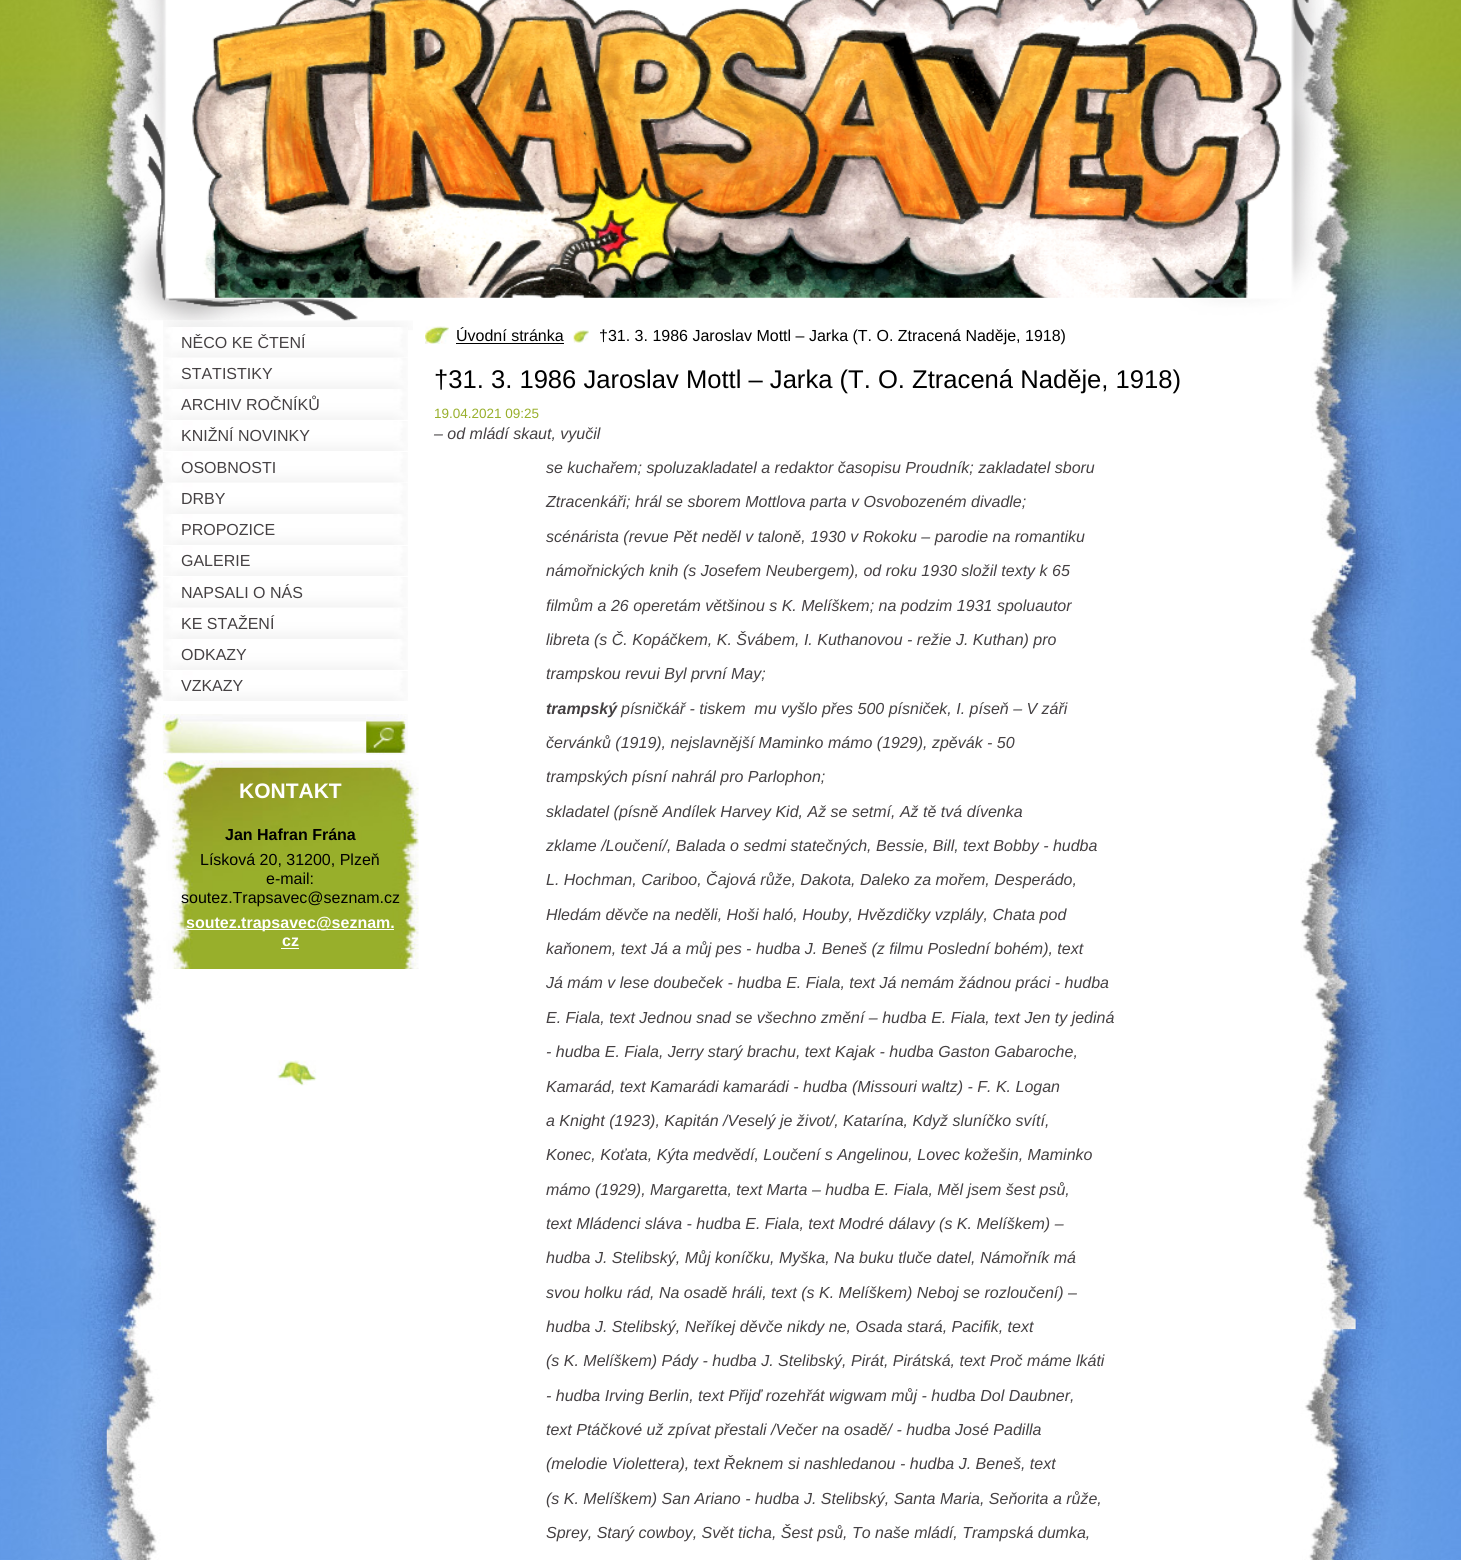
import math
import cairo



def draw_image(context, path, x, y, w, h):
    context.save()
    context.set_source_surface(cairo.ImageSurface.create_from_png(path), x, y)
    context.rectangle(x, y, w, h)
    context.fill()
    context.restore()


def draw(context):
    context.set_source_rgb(1, 1, 1)
    context.paint()
    draw_image(context, "images/1.png", 0, 1329, 1461, 231)
    draw_image(context, "images/2.png", 0, 0, 1461, 1329)
    draw_image(context, "images/5.png", 163, 320, 250, 11)
    draw_image(context, "images/3.png", 130, 0, 1194, 321)
    draw_image(context, "images/4.png", 166, 0, 1116, 298)
    draw_image(context, "images/6.png", 163, 327, 245, 31)
    draw_image(context, "images/7.png", 163, 358, 245, 31)
    draw_image(context, "images/8.png", 163, 389, 245, 31)
    draw_image(context, "images/9.png", 162, 421, 246, 30)
    draw_image(context, "images/10.png", 162, 452, 246, 31)
    draw_image(context, "images/11.png", 162, 483, 246, 31)
    draw_image(context, "images/8.png", 163, 514, 245, 31)
    draw_image(context, "images/12.png", 163, 546, 245, 30)
    draw_image(context, "images/6.png", 163, 577, 245, 31)
    draw_image(context, "images/13.png", 163, 608, 245, 31)
    draw_image(context, "images/8.png", 163, 639, 245, 31)
    draw_image(context, "images/12.png", 163, 671, 245, 30)
    draw_image(context, "images/14.png", 162, 714, 205, 40)
    draw_image(context, "images/15.png", 366, 714, 42, 41)
    draw_image(context, "images/16.png", 163, 760, 256, 209)
    context.set_source_rgb(1, 1, 1)
    context.rectangle(186, 929, 129, 1)
    context.fill()
    context.rectangle(315, 929, 79, 1)
    context.fill()
    context.rectangle(281, 948, 18, 1)
    context.fill()
    draw_image(context, "images/17.png", 277, 1060, 40, 26)
    draw_image(context, "images/18.png", 425, 326, 24, 18)
    context.set_source_rgb(0, 0, 0)
    context.rectangle(456, 343, 108, 1)
    context.fill()
    draw_image(context, "images/19.png", 573, 330, 16, 13)
    context.select_font_face("Liberation Sans")
    context.set_font_size(16)
    context.set_source_rgb(69 / 255, 65 / 255, 67 / 255)
    context.move_to(181, 348)
    context.show_text("NĚCO KE ČTENÍ")
    context.move_to(181, 379)
    context.show_text("STATISTIKY")
    context.move_to(181, 410)
    context.show_text("ARCHIV ROČNÍKŮ")
    context.move_to(181, 441)
    context.show_text("KNIŽNÍ NOVINKY")
    context.move_to(181, 473)
    context.show_text("OSOBNOSTI")
    context.move_to(181, 504)
    context.show_text("DRBY")
    context.move_to(181, 535)
    context.show_text("PROPOZICE")
    context.move_to(181, 566)
    context.show_text("GALERIE")
    context.move_to(181, 598)
    context.show_text("NAPSALI O NÁS")
    context.move_to(181, 629)
    context.show_text("KE STAŽENÍ")
    context.move_to(181, 660)
    context.show_text("ODKAZY")
    context.move_to(181, 691)
    context.show_text("VZKAZY")
    context.select_font_face("Liberation Sans", cairo.FontSlant.NORMAL, cairo.FontWeight.BOLD)
    context.set_font_size(21)
    context.set_source_rgb(1, 1, 1)
    context.move_to(239, 798)
    context.show_text("KONTAKT")
    context.set_font_size(16)
    context.set_source_rgb(0, 0, 0)
    context.move_to(225, 840)
    context.show_text("Jan Hafran Frána")
    context.select_font_face("Liberation Sans")
    context.move_to(200, 865)
    context.show_text("Lísková 20, 31200, Plzeň")
    context.move_to(266, 884)
    context.show_text("e-mail:")
    context.move_to(181, 903)
    context.show_text("soutez.Trapsavec@seznam.cz")
    context.select_font_face("Liberation Sans", cairo.FontSlant.NORMAL, cairo.FontWeight.BOLD)
    context.set_source_rgb(1, 1, 1)
    context.move_to(186, 928)
    context.show_text("soutez.trapsavec")
    context.move_to(316, 928)
    context.show_text("@seznam.")
    context.move_to(282, 946)
    context.show_text("cz")
    context.select_font_face("Liberation Sans")
    context.set_source_rgb(0, 0, 0)
    context.move_to(456, 341)
    context.show_text("Úvodní stránka")
    context.move_to(599, 341)
    context.show_text("†31. 3. 1986 Jaroslav Mottl – Jarka (T. O. Ztracená Naděje, 1918)")
    context.set_font_size(25.6)
    context.move_to(434, 388)
    context.show_text("†31. 3. 1986 Jaroslav Mottl – Jarka (T. O. Ztracená Naděje, 1918)")
    context.set_font_size(13.5)
    context.set_source_rgb(152 / 255, 175 / 255, 43 / 255)
    context.move_to(434, 418)
    context.show_text("19.04.2021 09:25")
    context.select_font_face("Liberation Sans", cairo.FontSlant.ITALIC)
    context.set_font_size(16)
    context.set_source_rgb(69 / 255, 65 / 255, 67 / 255)
    context.move_to(434, 439)
    context.show_text("– od mládí skaut, vyučil")
    context.move_to(546, 473)
    context.show_text("se kuchařem; spoluzakladatel a redaktor časopisu Proudník; zakladatel sboru")
    context.move_to(546, 507)
    context.show_text("Ztracenkáři; hrál se sborem Mottlova parta v Osvobozeném divadle;")
    context.move_to(546, 542)
    context.show_text("scénárista (revue Pět neděl v taloně, 1930 v Rokoku – parodie na romantiku")
    context.move_to(546, 576)
    context.show_text("námořnických knih (s Josefem Neubergem), od roku 1930 složil texty k 65")
    context.move_to(546, 611)
    context.show_text("filmům a 26 operetám většinou s K. Melíškem; na podzim 1931 spoluautor")
    context.move_to(546, 645)
    context.show_text("libreta (s Č. Kopáčkem, K. Švábem, I. Kuthanovou - režie J. Kuthan) pro")
    context.move_to(546, 679)
    context.show_text("trampskou revui Byl první May;")
    context.select_font_face("Liberation Sans", cairo.FontSlant.ITALIC, cairo.FontWeight.BOLD)
    context.move_to(546, 714)
    context.show_text("trampský")
    context.select_font_face("Liberation Sans", cairo.FontSlant.ITALIC)
    context.move_to(621, 714)
    context.show_text("písničkář - tiskem  mu vyšlo přes 500 písniček, I. píseň – V záři")
    context.move_to(546, 748)
    context.show_text("červánků (1919), nejslavnější Maminko mámo (1929), zpěvák - 50")
    context.move_to(546, 782)
    context.show_text("trampských písní nahrál pro Parlophon;")
    context.move_to(546, 817)
    context.show_text("skladatel (písně Andílek Harvey Kid, Až se setmí, Až tě tvá dívenka")
    context.move_to(546, 851)
    context.show_text("zklame /Loučení/, Balada o sedmi statečných, Bessie, Bill, text Bobby - hudba")
    context.move_to(546, 885)
    context.show_text("L. Hochman, Cariboo, Čajová růže, Dakota, Daleko za mořem, Desperádo,")
    context.move_to(546, 920)
    context.show_text("Hledám děvče na neděli, Hoši haló, Houby, Hvězdičky vzplály, Chata pod")
    context.move_to(546, 954)
    context.show_text("kaňonem, text Já a můj pes - hudba J. Beneš (z filmu Poslední bohém), text")
    context.move_to(546, 988)
    context.show_text("Já mám v lese doubeček - hudba E. Fiala, text Já nemám žádnou práci - hudba")
    context.move_to(546, 1023)
    context.show_text("E. Fiala, text Jednou snad se všechno změní – hudba E. Fiala, text Jen ty jediná")
    context.move_to(546, 1057)
    context.show_text("- hudba E. Fiala, Jerry starý brachu, text Kajak - hudba Gaston Gabaroche,")
    context.move_to(546, 1092)
    context.show_text("Kamarád, text Kamarádi kamarádi - hudba (Missouri waltz) - F. K. Logan")
    context.move_to(546, 1126)
    context.show_text("a Knight (1923), Kapitán /Veselý je život/, Katarína, Když sluníčko svítí,")
    context.move_to(546, 1160)
    context.show_text("Konec, Koťata, Kýta medvědí, Loučení s Angelinou, Lovec kožešin, Maminko")
    context.move_to(546, 1195)
    context.show_text("mámo (1929), Margaretta, text Marta – hudba E. Fiala, Měl jsem šest psů,")
    context.move_to(546, 1229)
    context.show_text("text Mládenci sláva - hudba E. Fiala, text Modré dálavy (s K. Melíškem) –")
    context.move_to(546, 1263)
    context.show_text("hudba J. Stelibský, Můj koníčku, Myška, Na buku tluče datel, Námořník má")
    context.move_to(546, 1298)
    context.show_text("svou holku rád, Na osadě hráli, text (s K. Melíškem) Neboj se rozloučení) –")
    context.move_to(546, 1332)
    context.show_text("hudba J. Stelibský, Neříkej děvče nikdy ne, Osada stará, Pacifik, text")
    context.move_to(546, 1366)
    context.show_text("(s K. Melíškem) Pády - hudba J. Stelibský, Pirát, Pirátská, text Proč máme lkáti")
    context.move_to(546, 1401)
    context.show_text("- hudba Irving Berlin, text Přijď rozehřát wigwam můj - hudba Dol Daubner,")
    context.move_to(546, 1435)
    context.show_text("text Ptáčkové už zpívat přestali /Večer na osadě/ - hudba José Padilla")
    context.move_to(546, 1469)
    context.show_text("(melodie Violettera), text Řeknem si nashledanou - hudba J. Beneš, text")
    context.move_to(546, 1504)
    context.show_text("(s K. Melíškem) San Ariano - hudba J. Stelibský, Santa Maria, Seňorita a růže,")
    context.move_to(546, 1538)
    context.show_text("Sprey, Starý cowboy, Svět ticha, Šest psů, To naše mládí, Trampská dumka,")


surface = cairo.ImageSurface(cairo.Format.RGB24, 1461, 1560)
context = cairo.Context(surface)
options = cairo.FontOptions()
options.set_hint_metrics(cairo.HintMetrics.OFF)
options.set_hint_style(cairo.HintStyle.NONE)
context.set_font_options(options)
context.set_miter_limit(4)
draw(context)
surface.write_to_png("out.png")
